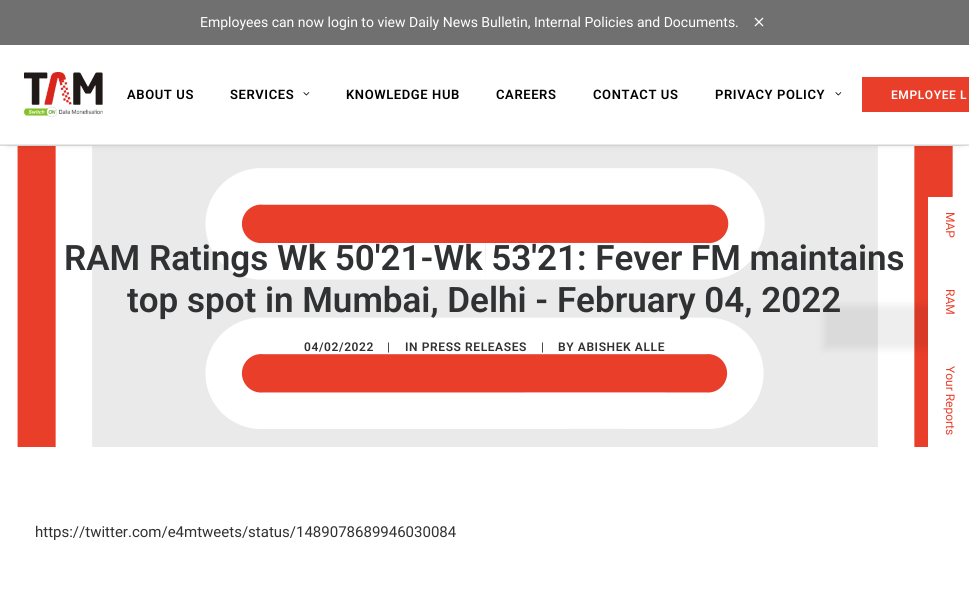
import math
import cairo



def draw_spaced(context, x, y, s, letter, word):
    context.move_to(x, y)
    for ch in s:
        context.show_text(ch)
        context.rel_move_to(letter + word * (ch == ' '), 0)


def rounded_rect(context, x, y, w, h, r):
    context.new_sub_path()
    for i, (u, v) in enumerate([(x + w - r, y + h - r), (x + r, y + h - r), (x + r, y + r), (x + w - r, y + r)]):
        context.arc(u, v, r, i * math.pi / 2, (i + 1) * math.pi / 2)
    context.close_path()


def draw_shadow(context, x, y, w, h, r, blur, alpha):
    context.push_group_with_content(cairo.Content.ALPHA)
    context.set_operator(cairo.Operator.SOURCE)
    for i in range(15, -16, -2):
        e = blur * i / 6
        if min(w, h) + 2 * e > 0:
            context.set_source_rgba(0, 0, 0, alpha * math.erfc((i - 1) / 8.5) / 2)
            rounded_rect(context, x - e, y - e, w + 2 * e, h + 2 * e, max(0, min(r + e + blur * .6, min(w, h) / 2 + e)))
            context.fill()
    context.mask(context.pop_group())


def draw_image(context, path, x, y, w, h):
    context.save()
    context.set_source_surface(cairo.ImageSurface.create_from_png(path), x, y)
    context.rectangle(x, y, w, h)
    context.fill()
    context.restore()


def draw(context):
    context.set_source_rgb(112 / 255, 112 / 255, 112 / 255)
    context.paint()
    draw_image(context, "images/1.png", 754, 17, 10, 10)
    context.set_source_rgb(222 / 255, 222 / 255, 222 / 255)
    context.rectangle(0, 145, 969, 1)
    context.fill()
    context.set_source_rgb(234 / 255, 234 / 255, 234 / 255)
    context.rectangle(92, 146, 786, 301)
    context.fill()
    draw_image(context, "images/4.png", 0, 146, 969, 301)
    context.set_source_rgb(0, 0, 0)
    draw_shadow(context, 9, 59, 952, 80, 0, 5, 0.6)
    context.set_source_rgb(1, 1, 1)
    context.rectangle(0, 45, 969, 99)
    context.fill()
    context.set_source_rgb(234 / 255, 234 / 255, 234 / 255)
    context.rectangle(0, 144, 969, 1)
    context.fill()
    draw_image(context, "images/2.png", 24, 72, 79, 45)
    draw_image(context, "images/3.png", 303, 92, 7, 4)
    draw_image(context, "images/3.png", 835, 92, 7, 4)
    context.set_source_rgb(232 / 255, 62 / 255, 42 / 255)
    context.rectangle(862, 77, 107, 35)
    context.fill()
    context.set_source_rgb(0, 0, 0)
    draw_shadow(context, 823, 305, 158, 44, 0, 4, 0.07)
    context.set_source_rgb(1, 1, 1)
    context.rectangle(928, 197, 41, 250)
    context.fill()
    context.rectangle(0, 447, 969, 156)
    context.fill()
    context.select_font_face("Roboto")
    context.set_font_size(14)
    context.move_to(200, 27)
    context.show_text("Employees can now login to view Daily News Bulletin, Internal Policies and Documents.")
    context.select_font_face("Roboto SemiBold")
    context.set_font_size(13)
    context.set_source_rgb(0, 0, 0)
    draw_spaced(context, 127, 99, "ABOUT US", 0.6, 0)
    draw_spaced(context, 230, 99, "SERVICES", 0.6, 0)
    draw_spaced(context, 346, 99, "KNOWLEDGE HUB", 0.6, 0)
    draw_spaced(context, 496, 99, "CAREERS", 0.6, 0)
    draw_spaced(context, 593, 99, "CONTACT US", 0.6, 0)
    draw_spaced(context, 715, 99, "PRIVACY POLICY", 0.6, 0)
    context.set_font_size(12)
    context.set_source_rgb(1, 1, 1)
    draw_spaced(context, 891, 99, "EMPLOYEE L", 0.6, 0)
    context.select_font_face("Roboto")
    context.set_source_rgb(232 / 255, 62 / 255, 42 / 255)
    context.save()
    context.translate(946, 212)
    context.rotate(90 * math.pi / 180)
    context.move_to(0, 0)
    context.show_text("MAP")
    context.restore()
    context.save()
    context.translate(946, 289)
    context.rotate(90 * math.pi / 180)
    context.move_to(0, 0)
    context.show_text("RAM")
    context.restore()
    context.save()
    context.translate(946, 366)
    context.rotate(90 * math.pi / 180)
    context.move_to(0, 0)
    context.show_text("Your Reports")
    context.restore()
    context.select_font_face("Roboto SemiBold")
    context.set_font_size(35)
    context.set_source_rgb(48 / 255, 49 / 255, 51 / 255)
    context.move_to(64, 270)
    context.show_text("RAM Ratings Wk 50'21-Wk 53'21: Fever FM maintains")
    context.move_to(127, 312)
    context.show_text("top spot in Mumbai, Delhi - February 04, 2022")
    context.set_font_size(12)
    draw_spaced(context, 304, 351, "04/02/2022", 0.6, 0)
    context.select_font_face("Roboto")
    draw_spaced(context, 387, 351, "|", 0.6, 0)
    context.select_font_face("Roboto SemiBold")
    draw_spaced(context, 405, 351, "IN PRESS RELEASES", 0.6, 0)
    context.select_font_face("Roboto")
    draw_spaced(context, 541, 351, "|", 0.6, 0)
    context.select_font_face("Roboto SemiBold")
    draw_spaced(context, 558, 351, "BY ABISHEK ALLE", 0.6, 0)
    context.select_font_face("Roboto")
    context.set_font_size(15)
    context.move_to(35, 537)
    context.show_text("https://twitter.com/e4mtweets/status/1489078689946030084")


surface = cairo.ImageSurface(cairo.Format.RGB24, 969, 603)
context = cairo.Context(surface)
options = cairo.FontOptions()
options.set_hint_metrics(cairo.HintMetrics.OFF)
options.set_hint_style(cairo.HintStyle.NONE)
context.set_font_options(options)
context.set_miter_limit(4)
draw(context)
surface.write_to_png("out.png")
